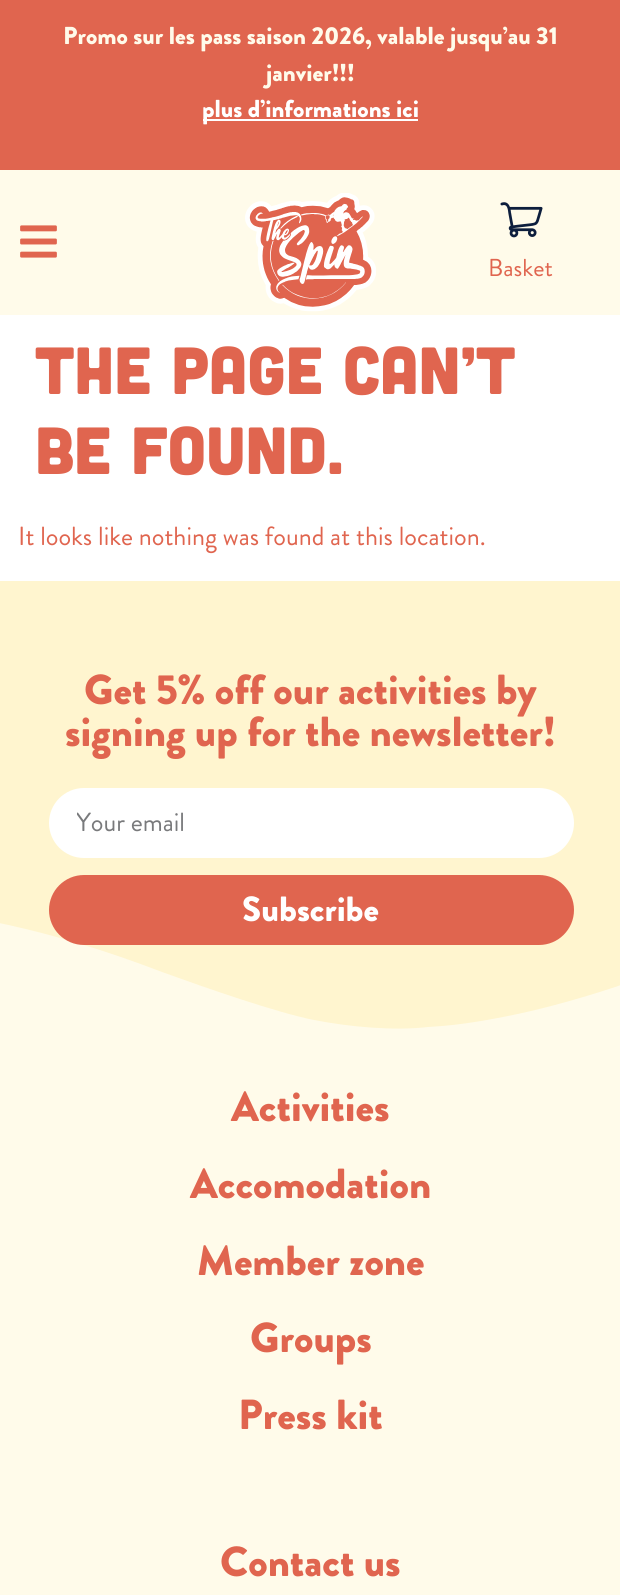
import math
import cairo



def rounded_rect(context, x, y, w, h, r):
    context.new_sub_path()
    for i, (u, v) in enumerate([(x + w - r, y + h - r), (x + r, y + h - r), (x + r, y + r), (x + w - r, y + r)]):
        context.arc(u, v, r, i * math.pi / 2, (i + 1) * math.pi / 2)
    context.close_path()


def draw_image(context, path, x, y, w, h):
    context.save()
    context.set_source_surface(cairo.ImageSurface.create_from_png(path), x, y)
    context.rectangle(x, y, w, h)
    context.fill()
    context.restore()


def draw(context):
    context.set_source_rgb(1, 1, 1)
    context.paint()
    context.set_source_rgb(224 / 255, 101 / 255, 79 / 255)
    context.rectangle(0, 0, 620, 170)
    context.fill()
    context.set_source_rgb(1, 1, 1)
    context.rectangle(203, 119, 215, 2)
    context.fill()
    context.set_source_rgb(1, 251 / 255, 234 / 255)
    context.rectangle(0, 170, 620, 145)
    context.fill()
    draw_image(context, "images/1.png", 20, 225, 37, 33)
    draw_image(context, "images/2.png", 245, 193, 131, 119)
    draw_image(context, "images/3.png", 500, 202, 43, 36)
    context.set_source_rgb(1, 245 / 255, 207 / 255)
    context.rectangle(0, 581, 620, 448)
    context.fill()
    context.set_source_rgb(1, 1, 1)
    rounded_rect(context, 49, 788, 525, 70, 35)
    context.fill()
    context.set_source_rgb(1, 251 / 255, 234 / 255)
    context.new_path()
    context.move_to(428, 1027)
    context.curve_to(394, 1031, 350, 1027, 314, 1020)
    context.curve_to(278, 1013, 206, 988, 162, 972)
    context.curve_to(47, 928, -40, 912, -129, 905)
    context.curve_to(-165, 902, -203, 900, -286, 908)
    context.curve_to(-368, 916, -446, 943, -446, 943)
    context.line_to(-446, 1036)
    context.line_to(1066, 1036)
    context.line_to(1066, 995)
    context.curve_to(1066, 995, 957, 951, 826, 954)
    context.curve_to(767, 955, 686, 963, 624, 984)
    context.curve_to(592, 995, 545, 1009, 503, 1017)
    context.curve_to(462, 1025, 443, 1026, 428, 1027)
    context.close_path()
    context.fill()
    context.set_source_rgb(224 / 255, 101 / 255, 79 / 255)
    rounded_rect(context, 49, 875, 525, 70, 35)
    context.fill()
    context.set_source_rgb(1, 251 / 255, 234 / 255)
    context.rectangle(0, 1036, 620, 559)
    context.fill()
    context.select_font_face("Brandon Grotesque Black")
    context.set_font_size(24.5)
    context.move_to(63, 44)
    context.show_text("Promo sur les pass saison 2026, valable jusqu’au 31")
    context.move_to(266, 81)
    context.show_text("janvier!!!")
    context.set_source_rgb(1, 1, 1)
    context.move_to(202, 117)
    context.show_text("plus d’informations ici")
    context.select_font_face("Brandon Grotesque")
    context.set_source_rgb(224 / 255, 101 / 255, 79 / 255)
    context.move_to(488, 276)
    context.show_text("Basket")
    context.select_font_face("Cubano")
    context.set_font_size(66.5)
    context.move_to(35, 394)
    context.show_text("The page can’t")
    context.move_to(35, 474)
    context.show_text("be found.")
    context.select_font_face("Brandon Grotesque")
    context.set_font_size(26.25)
    context.move_to(18, 545)
    context.show_text("It looks like nothing was found at this location.")
    context.select_font_face("Brandon Grotesque Black")
    context.set_font_size(42)
    context.move_to(84, 704)
    context.show_text("Get 5% off our activities by")
    context.move_to(65, 746)
    context.show_text("signing up for the newsletter!")
    context.save()
    context.rectangle(77, 803, 469, 39)
    context.clip()
    context.select_font_face("Brandon Grotesque")
    context.set_font_size(26.25)
    context.set_source_rgb(121 / 255, 122 / 255, 124 / 255)
    context.move_to(76, 831)
    context.show_text("Your email")
    context.restore()
    context.set_font_size(35)
    context.set_source_rgb(1, 1, 1)
    context.move_to(242, 921)
    context.show_text("Subscribe")
    context.set_font_size(42)
    context.set_source_rgb(224 / 255, 101 / 255, 79 / 255)
    context.move_to(231, 1121)
    context.show_text("Activities")
    context.move_to(190, 1198)
    context.show_text("Accomodation")
    context.move_to(197, 1275)
    context.show_text("Member zone")
    context.move_to(250, 1352)
    context.show_text("Groups")
    context.move_to(238, 1429)
    context.show_text("Press kit")
    context.move_to(220, 1576)
    context.show_text("Contact us")


surface = cairo.ImageSurface(cairo.Format.RGB24, 620, 1595)
context = cairo.Context(surface)
options = cairo.FontOptions()
options.set_hint_metrics(cairo.HintMetrics.OFF)
options.set_hint_style(cairo.HintStyle.NONE)
context.set_font_options(options)
context.set_miter_limit(4)
draw(context)
surface.write_to_png("out.png")
